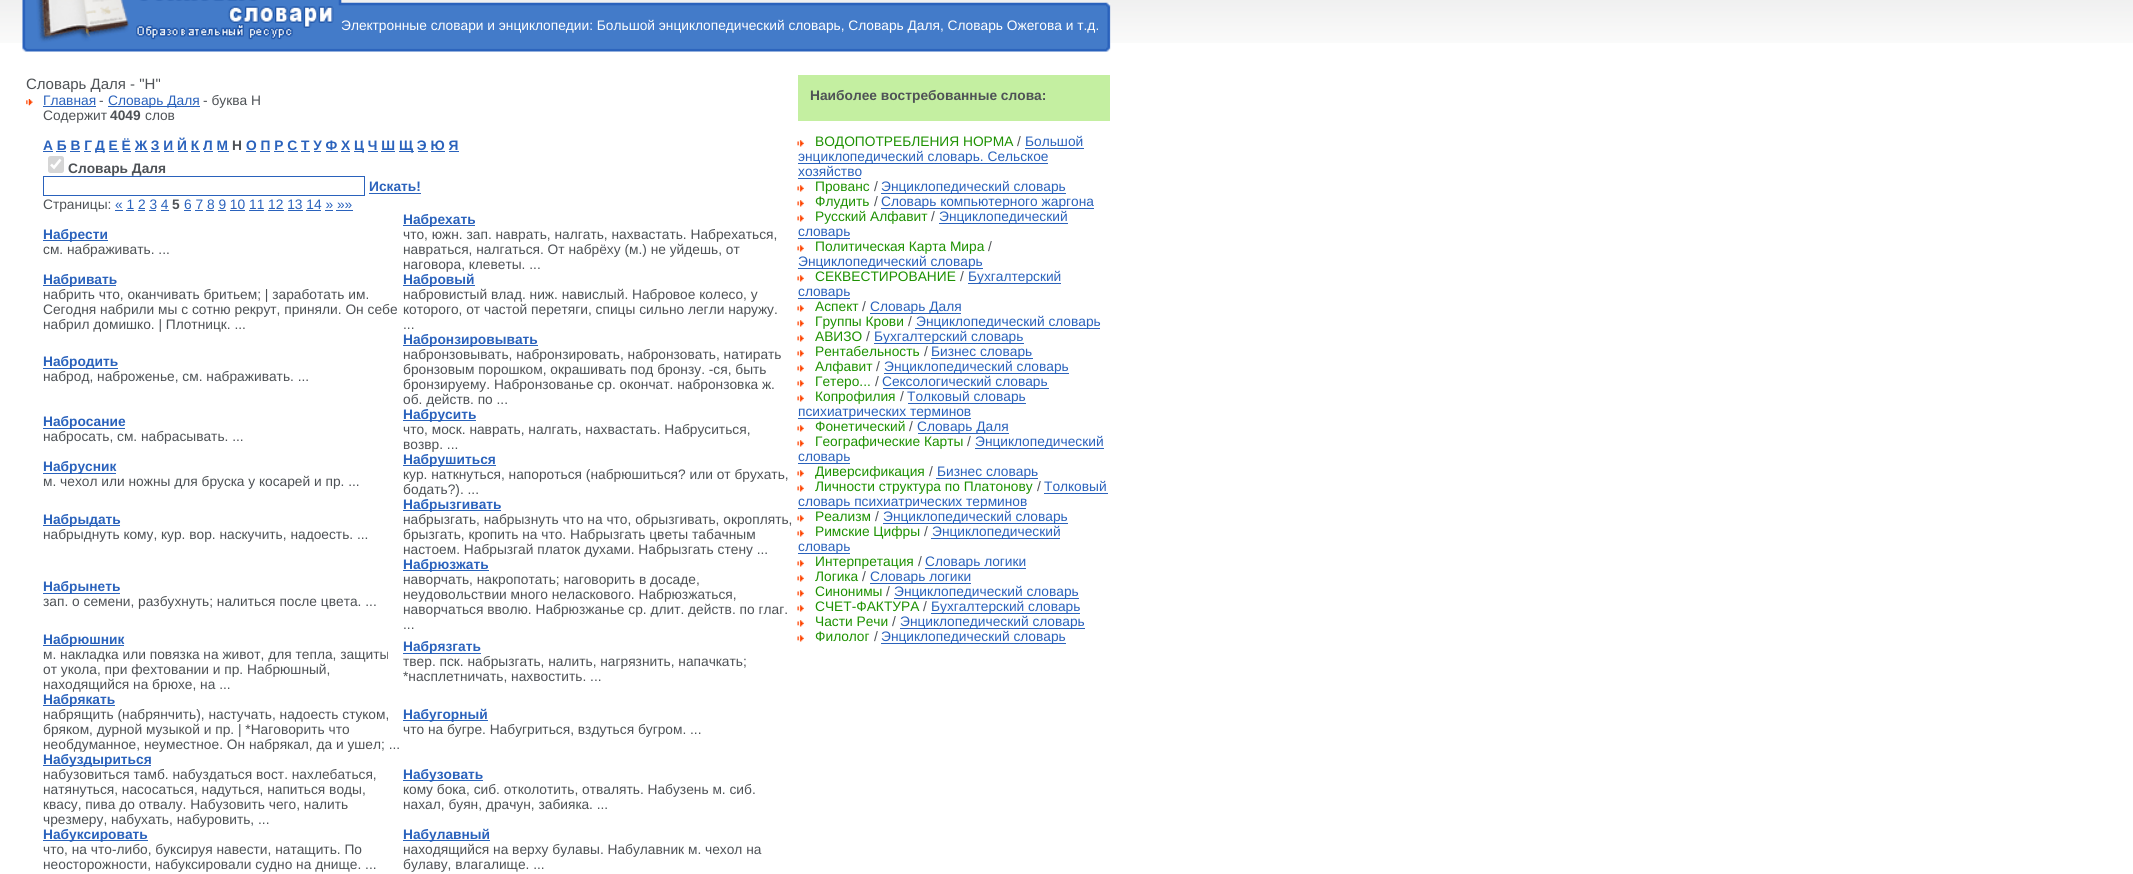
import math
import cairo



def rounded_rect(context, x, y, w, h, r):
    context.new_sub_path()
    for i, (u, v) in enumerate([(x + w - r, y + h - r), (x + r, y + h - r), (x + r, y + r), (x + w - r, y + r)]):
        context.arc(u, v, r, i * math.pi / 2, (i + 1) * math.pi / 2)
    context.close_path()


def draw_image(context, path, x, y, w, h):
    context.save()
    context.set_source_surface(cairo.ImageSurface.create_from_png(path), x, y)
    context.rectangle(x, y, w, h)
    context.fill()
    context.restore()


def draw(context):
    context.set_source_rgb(1, 1, 1)
    context.paint()
    draw_image(context, "images/1.png", 0, 0, 2133, 43)
    draw_image(context, "images/2.png", 22, 0, 1089, 52)
    draw_image(context, "images/3.png", 26, 99, 7, 7)
    context.set_source_rgb(42 / 255, 98 / 255, 188 / 255)
    context.rectangle(43, 106, 53, 1)
    context.fill()
    context.rectangle(108, 106, 92, 1)
    context.fill()
    context.rectangle(43, 151, 10, 1)
    context.fill()
    context.rectangle(95, 151, 10, 1)
    context.fill()
    context.rectangle(246, 151, 10, 1)
    context.fill()
    context.rectangle(354, 151, 10, 1)
    context.fill()
    context.rectangle(399, 151, 15, 1)
    context.fill()
    context.rectangle(56, 151, 10, 1)
    context.fill()
    context.rectangle(70, 151, 10, 1)
    context.fill()
    context.rectangle(84, 151, 7, 1)
    context.fill()
    context.rectangle(109, 151, 10, 1)
    context.fill()
    context.rectangle(123, 151, 8, 1)
    context.fill()
    context.rectangle(135, 151, 13, 1)
    context.fill()
    context.rectangle(151, 151, 9, 1)
    context.fill()
    context.rectangle(164, 151, 10, 1)
    context.fill()
    context.rectangle(178, 151, 10, 1)
    context.fill()
    context.rectangle(191, 151, 9, 1)
    context.fill()
    context.rectangle(204, 151, 9, 1)
    context.fill()
    context.rectangle(218, 151, 11, 1)
    context.fill()
    context.rectangle(260, 151, 10, 1)
    context.fill()
    context.rectangle(274, 151, 10, 1)
    context.fill()
    context.rectangle(288, 151, 10, 1)
    context.fill()
    context.rectangle(301, 151, 9, 1)
    context.fill()
    context.rectangle(314, 151, 7, 1)
    context.fill()
    context.rectangle(326, 151, 12, 1)
    context.fill()
    context.rectangle(341, 151, 9, 1)
    context.fill()
    context.rectangle(368, 151, 10, 1)
    context.fill()
    context.rectangle(381, 151, 14, 1)
    context.fill()
    context.rectangle(418, 151, 10, 1)
    context.fill()
    context.rectangle(431, 151, 14, 1)
    context.fill()
    context.rectangle(449, 151, 10, 1)
    context.fill()
    context.set_source_rgb(214 / 255, 214 / 255, 214 / 255)
    rounded_rect(context, 48, 156, 16, 17, 2.5)
    context.fill()
    context.new_path()
    context.move_to(51, 164.5)
    context.line_to(54, 167.5)
    context.line_to(60.5, 159.5)
    context.set_source_rgb(1, 1, 1)
    context.set_line_width(2.6)
    context.stroke()
    context.rectangle(43.5, 176.5, 321, 19)
    context.set_source_rgb(42 / 255, 98 / 255, 188 / 255)
    context.set_line_width(1)
    context.stroke()
    context.rectangle(369, 193, 52, 1)
    context.fill()
    context.rectangle(115, 210, 8, 1)
    context.fill()
    context.rectangle(184, 210, 7, 1)
    context.fill()
    context.rectangle(126, 210, 8, 1)
    context.fill()
    context.rectangle(138, 210, 7, 1)
    context.fill()
    context.rectangle(149, 210, 7, 1)
    context.fill()
    context.rectangle(161, 210, 8, 1)
    context.fill()
    context.rectangle(195, 210, 8, 1)
    context.fill()
    context.rectangle(206, 210, 8, 1)
    context.fill()
    context.rectangle(218, 210, 8, 1)
    context.fill()
    context.rectangle(230, 210, 15, 1)
    context.fill()
    context.rectangle(249, 210, 15, 1)
    context.fill()
    context.rectangle(268, 210, 16, 1)
    context.fill()
    context.rectangle(288, 210, 15, 1)
    context.fill()
    context.rectangle(306, 210, 15, 1)
    context.fill()
    context.rectangle(325, 210, 8, 1)
    context.fill()
    context.rectangle(336, 210, 17, 1)
    context.fill()
    context.rectangle(43, 240, 65, 1)
    context.fill()
    context.rectangle(403, 225, 72, 1)
    context.fill()
    context.rectangle(43, 285, 73, 1)
    context.fill()
    context.rectangle(403, 285, 72, 1)
    context.fill()
    context.rectangle(43, 368, 75, 1)
    context.fill()
    context.rectangle(403, 345, 135, 1)
    context.fill()
    context.rectangle(43, 428, 82, 1)
    context.fill()
    context.rectangle(403, 420, 73, 1)
    context.fill()
    context.rectangle(43, 473, 73, 1)
    context.fill()
    context.rectangle(403, 465, 93, 1)
    context.fill()
    context.rectangle(43, 525, 77, 1)
    context.fill()
    context.rectangle(403, 510, 98, 1)
    context.fill()
    context.rectangle(43, 593, 77, 1)
    context.fill()
    context.rectangle(403, 570, 86, 1)
    context.fill()
    context.rectangle(43, 645, 81, 1)
    context.fill()
    context.rectangle(403, 653, 78, 1)
    context.fill()
    context.rectangle(43, 705, 72, 1)
    context.fill()
    context.rectangle(403, 720, 85, 1)
    context.fill()
    context.rectangle(43, 765, 108, 1)
    context.fill()
    context.rectangle(403, 780, 80, 1)
    context.fill()
    context.rectangle(43, 840, 105, 1)
    context.fill()
    context.rectangle(403, 840, 87, 1)
    context.fill()
    context.set_source_rgb(196 / 255, 239 / 255, 161 / 255)
    context.rectangle(798, 75, 312, 46)
    context.fill()
    draw_image(context, "images/4.png", 797, 140, 7, 7)
    context.set_source_rgb(42 / 255, 98 / 255, 188 / 255)
    context.rectangle(1025, 148, 59, 1)
    context.fill()
    context.rectangle(798, 163, 250, 1)
    context.fill()
    context.rectangle(798, 178, 63, 1)
    context.fill()
    draw_image(context, "images/4.png", 797, 185, 7, 7)
    context.rectangle(881, 193, 185, 1)
    context.fill()
    draw_image(context, "images/4.png", 797, 200, 7, 7)
    context.rectangle(881, 208, 213, 1)
    context.fill()
    draw_image(context, "images/4.png", 797, 215, 7, 7)
    context.rectangle(939, 223, 129, 1)
    context.fill()
    context.rectangle(798, 238, 52, 1)
    context.fill()
    draw_image(context, "images/4.png", 797, 245, 7, 7)
    context.rectangle(798, 268, 185, 1)
    context.fill()
    draw_image(context, "images/4.png", 797, 275, 7, 7)
    context.rectangle(968, 283, 93, 1)
    context.fill()
    context.rectangle(798, 298, 52, 1)
    context.fill()
    draw_image(context, "images/4.png", 797, 305, 7, 7)
    context.rectangle(870, 313, 91, 1)
    context.fill()
    draw_image(context, "images/4.png", 797, 320, 7, 7)
    context.rectangle(915, 328, 185, 1)
    context.fill()
    draw_image(context, "images/4.png", 797, 335, 7, 7)
    context.rectangle(874, 343, 150, 1)
    context.fill()
    draw_image(context, "images/4.png", 797, 350, 7, 7)
    context.rectangle(931, 358, 102, 1)
    context.fill()
    draw_image(context, "images/4.png", 797, 365, 7, 7)
    context.rectangle(884, 373, 185, 1)
    context.fill()
    draw_image(context, "images/4.png", 797, 380, 7, 7)
    context.rectangle(883, 388, 166, 1)
    context.fill()
    draw_image(context, "images/4.png", 797, 395, 7, 7)
    context.rectangle(908, 403, 118, 1)
    context.fill()
    context.rectangle(798, 418, 173, 1)
    context.fill()
    draw_image(context, "images/4.png", 797, 425, 7, 7)
    context.rectangle(918, 433, 91, 1)
    context.fill()
    draw_image(context, "images/4.png", 797, 440, 7, 7)
    context.rectangle(975, 448, 129, 1)
    context.fill()
    context.rectangle(798, 463, 52, 1)
    context.fill()
    draw_image(context, "images/4.png", 797, 470, 7, 7)
    context.rectangle(936, 478, 102, 1)
    context.fill()
    draw_image(context, "images/4.png", 797, 485, 7, 7)
    context.rectangle(1044, 493, 64, 1)
    context.fill()
    context.rectangle(798, 508, 228, 1)
    context.fill()
    draw_image(context, "images/4.png", 797, 515, 7, 7)
    context.rectangle(883, 523, 185, 1)
    context.fill()
    draw_image(context, "images/4.png", 797, 530, 7, 7)
    context.rectangle(931, 538, 129, 1)
    context.fill()
    context.rectangle(798, 553, 52, 1)
    context.fill()
    draw_image(context, "images/4.png", 797, 560, 7, 7)
    context.rectangle(925, 568, 101, 1)
    context.fill()
    draw_image(context, "images/4.png", 797, 575, 7, 7)
    context.rectangle(870, 583, 101, 1)
    context.fill()
    draw_image(context, "images/4.png", 797, 590, 7, 7)
    context.rectangle(894, 598, 185, 1)
    context.fill()
    draw_image(context, "images/4.png", 797, 605, 7, 7)
    context.rectangle(931, 613, 149, 1)
    context.fill()
    draw_image(context, "images/4.png", 797, 620, 7, 7)
    context.rectangle(900, 628, 185, 1)
    context.fill()
    draw_image(context, "images/4.png", 797, 635, 7, 7)
    context.rectangle(881, 643, 185, 1)
    context.fill()
    context.select_font_face("Liberation Sans")
    context.set_font_size(13.75)
    context.set_source_rgb(1, 1, 1)
    context.move_to(341, 30)
    context.show_text("Электронные словари и энциклопедии: Большой энциклопедический словарь, Словарь Даля, Словарь Ожегова и т.д.")
    context.set_font_size(15)
    context.set_source_rgb(78 / 255, 82 / 255, 86 / 255)
    context.move_to(26, 89)
    context.show_text("Словарь Даля - \"Н\"")
    context.set_font_size(13.75)
    context.set_source_rgb(42 / 255, 98 / 255, 188 / 255)
    context.move_to(43, 105)
    context.show_text("Главная")
    context.set_source_rgb(78 / 255, 82 / 255, 86 / 255)
    context.move_to(99, 105)
    context.show_text("-")
    context.set_source_rgb(42 / 255, 98 / 255, 188 / 255)
    context.move_to(108, 105)
    context.show_text("Словарь Даля")
    context.set_source_rgb(78 / 255, 82 / 255, 86 / 255)
    context.move_to(203, 105)
    context.show_text("- буква Н")
    context.move_to(43, 120)
    context.show_text("Содержит")
    context.select_font_face("Liberation Sans", cairo.FontSlant.NORMAL, cairo.FontWeight.BOLD)
    context.move_to(110, 120)
    context.show_text("4049")
    context.select_font_face("Liberation Sans")
    context.move_to(145, 120)
    context.show_text("слов")
    context.select_font_face("Liberation Sans", cairo.FontSlant.NORMAL, cairo.FontWeight.BOLD)
    context.set_source_rgb(42 / 255, 98 / 255, 188 / 255)
    context.move_to(43, 150)
    context.show_text("А Б В Г")
    context.move_to(95, 150)
    context.show_text("Д Е Ё Ж З И Й К Л М")
    context.set_source_rgb(78 / 255, 82 / 255, 86 / 255)
    context.move_to(232, 150)
    context.show_text("Н")
    context.set_source_rgb(42 / 255, 98 / 255, 188 / 255)
    context.move_to(246, 150)
    context.show_text("О П Р С Т У Ф Х")
    context.move_to(354, 150)
    context.show_text("Ц Ч Ш")
    context.move_to(399, 150)
    context.show_text("Щ Э Ю Я")
    context.set_source_rgb(78 / 255, 82 / 255, 86 / 255)
    context.move_to(68, 173)
    context.show_text("Словарь Даля")
    context.set_source_rgb(42 / 255, 98 / 255, 188 / 255)
    context.move_to(369, 191)
    context.show_text("Искать!")
    context.select_font_face("Liberation Sans")
    context.set_source_rgb(78 / 255, 82 / 255, 86 / 255)
    context.move_to(43, 209)
    context.show_text("Страницы:")
    context.set_source_rgb(42 / 255, 98 / 255, 188 / 255)
    context.move_to(115, 209)
    context.show_text("« 1 2 3 4")
    context.select_font_face("Liberation Sans", cairo.FontSlant.NORMAL, cairo.FontWeight.BOLD)
    context.set_source_rgb(78 / 255, 82 / 255, 86 / 255)
    context.move_to(172, 209)
    context.show_text("5")
    context.select_font_face("Liberation Sans")
    context.set_source_rgb(42 / 255, 98 / 255, 188 / 255)
    context.move_to(184, 209)
    context.show_text("6 7 8 9 10 11 12 13 14 » »»")
    context.select_font_face("Liberation Sans", cairo.FontSlant.NORMAL, cairo.FontWeight.BOLD)
    context.move_to(43, 239)
    context.show_text("Набрести")
    context.select_font_face("Liberation Sans")
    context.set_source_rgb(78 / 255, 82 / 255, 86 / 255)
    context.move_to(43, 254)
    context.show_text("см. набраживать. ...")
    context.select_font_face("Liberation Sans", cairo.FontSlant.NORMAL, cairo.FontWeight.BOLD)
    context.set_source_rgb(42 / 255, 98 / 255, 188 / 255)
    context.move_to(403, 224)
    context.show_text("Набрехать")
    context.select_font_face("Liberation Sans")
    context.set_source_rgb(78 / 255, 82 / 255, 86 / 255)
    context.move_to(403, 239)
    context.show_text("что, южн. зап. наврать, налгать, нахвастать. Набрехаться,")
    context.move_to(403, 254)
    context.show_text("навраться, налгаться. От набрёху (м.) не уйдешь, от")
    context.move_to(403, 269)
    context.show_text("наговора, клеветы. ...")
    context.select_font_face("Liberation Sans", cairo.FontSlant.NORMAL, cairo.FontWeight.BOLD)
    context.set_source_rgb(42 / 255, 98 / 255, 188 / 255)
    context.move_to(43, 284)
    context.show_text("Набривать")
    context.select_font_face("Liberation Sans")
    context.set_source_rgb(78 / 255, 82 / 255, 86 / 255)
    context.move_to(43, 299)
    context.show_text("набрить что, оканчивать бритьем; | заработать им.")
    context.move_to(43, 314)
    context.show_text("Сегодня набрили мы с сотню рекрут, приняли. Он себе")
    context.move_to(43, 329)
    context.show_text("набрил домишко. | Плотницк. ...")
    context.select_font_face("Liberation Sans", cairo.FontSlant.NORMAL, cairo.FontWeight.BOLD)
    context.set_source_rgb(42 / 255, 98 / 255, 188 / 255)
    context.move_to(403, 284)
    context.show_text("Набровый")
    context.select_font_face("Liberation Sans")
    context.set_source_rgb(78 / 255, 82 / 255, 86 / 255)
    context.move_to(403, 299)
    context.show_text("набровистый влад. ниж. навислый. Набровое колесо, у")
    context.move_to(403, 314)
    context.show_text("которого, от частой перетяги, спицы сильно легли наружу.")
    context.move_to(403, 329)
    context.show_text("...")
    context.select_font_face("Liberation Sans", cairo.FontSlant.NORMAL, cairo.FontWeight.BOLD)
    context.set_source_rgb(42 / 255, 98 / 255, 188 / 255)
    context.move_to(43, 366)
    context.show_text("Набродить")
    context.select_font_face("Liberation Sans")
    context.set_source_rgb(78 / 255, 82 / 255, 86 / 255)
    context.move_to(43, 381)
    context.show_text("наброд, наброженье, см. набраживать. ...")
    context.select_font_face("Liberation Sans", cairo.FontSlant.NORMAL, cairo.FontWeight.BOLD)
    context.set_source_rgb(42 / 255, 98 / 255, 188 / 255)
    context.move_to(403, 344)
    context.show_text("Набронзировывать")
    context.select_font_face("Liberation Sans")
    context.set_source_rgb(78 / 255, 82 / 255, 86 / 255)
    context.move_to(403, 359)
    context.show_text("набронзовывать, набронзировать, набронзовать, натирать")
    context.move_to(403, 374)
    context.show_text("бронзовым порошком, окрашивать под бронзу. -ся, быть")
    context.move_to(403, 389)
    context.show_text("бронзируему. Набронзованье ср. окончат. набронзовка ж.")
    context.move_to(403, 404)
    context.show_text("об. действ. по ...")
    context.select_font_face("Liberation Sans", cairo.FontSlant.NORMAL, cairo.FontWeight.BOLD)
    context.set_source_rgb(42 / 255, 98 / 255, 188 / 255)
    context.move_to(43, 426)
    context.show_text("Набросание")
    context.select_font_face("Liberation Sans")
    context.set_source_rgb(78 / 255, 82 / 255, 86 / 255)
    context.move_to(43, 441)
    context.show_text("набросать, см. набрасывать. ...")
    context.select_font_face("Liberation Sans", cairo.FontSlant.NORMAL, cairo.FontWeight.BOLD)
    context.set_source_rgb(42 / 255, 98 / 255, 188 / 255)
    context.move_to(403, 419)
    context.show_text("Набрусить")
    context.select_font_face("Liberation Sans")
    context.set_source_rgb(78 / 255, 82 / 255, 86 / 255)
    context.move_to(403, 434)
    context.show_text("что, моск. наврать, налгать, нахвастать. Набруситься,")
    context.move_to(403, 449)
    context.show_text("возвр. ...")
    context.select_font_face("Liberation Sans", cairo.FontSlant.NORMAL, cairo.FontWeight.BOLD)
    context.set_source_rgb(42 / 255, 98 / 255, 188 / 255)
    context.move_to(43, 471)
    context.show_text("Набрусник")
    context.select_font_face("Liberation Sans")
    context.set_source_rgb(78 / 255, 82 / 255, 86 / 255)
    context.move_to(43, 486)
    context.show_text("м. чехол или ножны для бруска у косарей и пр. ...")
    context.select_font_face("Liberation Sans", cairo.FontSlant.NORMAL, cairo.FontWeight.BOLD)
    context.set_source_rgb(42 / 255, 98 / 255, 188 / 255)
    context.move_to(403, 464)
    context.show_text("Набрушиться")
    context.select_font_face("Liberation Sans")
    context.set_source_rgb(78 / 255, 82 / 255, 86 / 255)
    context.move_to(403, 479)
    context.show_text("кур. наткнуться, напороться (набрюшиться? или от брухать,")
    context.move_to(403, 494)
    context.show_text("бодать?). ...")
    context.select_font_face("Liberation Sans", cairo.FontSlant.NORMAL, cairo.FontWeight.BOLD)
    context.set_source_rgb(42 / 255, 98 / 255, 188 / 255)
    context.move_to(43, 524)
    context.show_text("Набрыдать")
    context.select_font_face("Liberation Sans")
    context.set_source_rgb(78 / 255, 82 / 255, 86 / 255)
    context.move_to(43, 539)
    context.show_text("набрыднуть кому, кур. вор. наскучить, надоесть. ...")
    context.select_font_face("Liberation Sans", cairo.FontSlant.NORMAL, cairo.FontWeight.BOLD)
    context.set_source_rgb(42 / 255, 98 / 255, 188 / 255)
    context.move_to(403, 509)
    context.show_text("Набрызгивать")
    context.select_font_face("Liberation Sans")
    context.set_source_rgb(78 / 255, 82 / 255, 86 / 255)
    context.move_to(403, 524)
    context.show_text("набрызгать, набрызнуть что на что, обрызгивать, окроплять,")
    context.move_to(403, 539)
    context.show_text("брызгать, кропить на что. Набрызгать цветы табачным")
    context.move_to(403, 554)
    context.show_text("настоем. Набрызгай платок духами. Набрызгать стену ...")
    context.select_font_face("Liberation Sans", cairo.FontSlant.NORMAL, cairo.FontWeight.BOLD)
    context.set_source_rgb(42 / 255, 98 / 255, 188 / 255)
    context.move_to(43, 591)
    context.show_text("Набрынеть")
    context.select_font_face("Liberation Sans")
    context.set_source_rgb(78 / 255, 82 / 255, 86 / 255)
    context.move_to(43, 606)
    context.show_text("зап. о семени, разбухнуть; налиться после цвета. ...")
    context.select_font_face("Liberation Sans", cairo.FontSlant.NORMAL, cairo.FontWeight.BOLD)
    context.set_source_rgb(42 / 255, 98 / 255, 188 / 255)
    context.move_to(403, 569)
    context.show_text("Набрюзжать")
    context.select_font_face("Liberation Sans")
    context.set_source_rgb(78 / 255, 82 / 255, 86 / 255)
    context.move_to(403, 584)
    context.show_text("наворчать, накропотать; наговорить в досаде,")
    context.move_to(403, 599)
    context.show_text("неудовольствии много неласкового. Набрюзжаться,")
    context.move_to(403, 614)
    context.show_text("наворчаться вволю. Набрюзжанье ср. длит. действ. по глаг.")
    context.move_to(403, 629)
    context.show_text("...")
    context.select_font_face("Liberation Sans", cairo.FontSlant.NORMAL, cairo.FontWeight.BOLD)
    context.set_source_rgb(42 / 255, 98 / 255, 188 / 255)
    context.move_to(43, 644)
    context.show_text("Набрюшник")
    context.select_font_face("Liberation Sans")
    context.set_source_rgb(78 / 255, 82 / 255, 86 / 255)
    context.move_to(43, 659)
    context.show_text("м. накладка или повязка на живот, для тепла, защиты")
    context.move_to(43, 674)
    context.show_text("от укола, при фехтовании и пр. Набрюшный,")
    context.move_to(43, 689)
    context.show_text("находящийся на брюхе, на ...")
    context.select_font_face("Liberation Sans", cairo.FontSlant.NORMAL, cairo.FontWeight.BOLD)
    context.set_source_rgb(42 / 255, 98 / 255, 188 / 255)
    context.move_to(403, 651)
    context.show_text("Набрязгать")
    context.select_font_face("Liberation Sans")
    context.set_source_rgb(78 / 255, 82 / 255, 86 / 255)
    context.move_to(403, 666)
    context.show_text("твер. пск. набрызгать, налить, нагрязнить, напачкать;")
    context.move_to(403, 681)
    context.show_text("*насплетничать, нахвостить. ...")
    context.select_font_face("Liberation Sans", cairo.FontSlant.NORMAL, cairo.FontWeight.BOLD)
    context.set_source_rgb(42 / 255, 98 / 255, 188 / 255)
    context.move_to(43, 704)
    context.show_text("Набрякать")
    context.select_font_face("Liberation Sans")
    context.set_source_rgb(78 / 255, 82 / 255, 86 / 255)
    context.move_to(43, 719)
    context.show_text("набрящить (набрянчить), настучать, надоесть стуком,")
    context.move_to(43, 734)
    context.show_text("бряком, дурной музыкой и пр. | *Наговорить что")
    context.move_to(43, 749)
    context.show_text("необдуманное, неуместное. Он набрякал, да и ушел; ...")
    context.select_font_face("Liberation Sans", cairo.FontSlant.NORMAL, cairo.FontWeight.BOLD)
    context.set_source_rgb(42 / 255, 98 / 255, 188 / 255)
    context.move_to(403, 719)
    context.show_text("Набугорный")
    context.select_font_face("Liberation Sans")
    context.set_source_rgb(78 / 255, 82 / 255, 86 / 255)
    context.move_to(403, 734)
    context.show_text("что на бугре. Набугриться, вздуться бугром. ...")
    context.select_font_face("Liberation Sans", cairo.FontSlant.NORMAL, cairo.FontWeight.BOLD)
    context.set_source_rgb(42 / 255, 98 / 255, 188 / 255)
    context.move_to(43, 764)
    context.show_text("Набуздыриться")
    context.select_font_face("Liberation Sans")
    context.set_source_rgb(78 / 255, 82 / 255, 86 / 255)
    context.move_to(43, 779)
    context.show_text("набузовиться тамб. набуздаться вост. нахлебаться,")
    context.move_to(43, 794)
    context.show_text("натянуться, насосаться, надуться, напиться воды,")
    context.move_to(43, 809)
    context.show_text("квасу, пива до отвалу. Набузовить чего, налить")
    context.move_to(43, 824)
    context.show_text("чрезмеру, набухать, набуровить, ...")
    context.select_font_face("Liberation Sans", cairo.FontSlant.NORMAL, cairo.FontWeight.BOLD)
    context.set_source_rgb(42 / 255, 98 / 255, 188 / 255)
    context.move_to(403, 779)
    context.show_text("Набузовать")
    context.select_font_face("Liberation Sans")
    context.set_source_rgb(78 / 255, 82 / 255, 86 / 255)
    context.move_to(403, 794)
    context.show_text("кому бока, сиб. отколотить, отвалять. Набузень м. сиб.")
    context.move_to(403, 809)
    context.show_text("нахал, буян, драчун, забияка. ...")
    context.select_font_face("Liberation Sans", cairo.FontSlant.NORMAL, cairo.FontWeight.BOLD)
    context.set_source_rgb(42 / 255, 98 / 255, 188 / 255)
    context.move_to(43, 839)
    context.show_text("Набуксировать")
    context.select_font_face("Liberation Sans")
    context.set_source_rgb(78 / 255, 82 / 255, 86 / 255)
    context.move_to(43, 854)
    context.show_text("что, на что-либо, буксируя навести, натащить. По")
    context.move_to(43, 869)
    context.show_text("неосторожности, набуксировали судно на днище. ...")
    context.select_font_face("Liberation Sans", cairo.FontSlant.NORMAL, cairo.FontWeight.BOLD)
    context.set_source_rgb(42 / 255, 98 / 255, 188 / 255)
    context.move_to(403, 839)
    context.show_text("Набулавный")
    context.select_font_face("Liberation Sans")
    context.set_source_rgb(78 / 255, 82 / 255, 86 / 255)
    context.move_to(403, 854)
    context.show_text("находящийся на верху булавы. Набулавник м. чехол на")
    context.move_to(403, 869)
    context.show_text("булаву, влагалище. ...")
    context.select_font_face("Liberation Sans", cairo.FontSlant.NORMAL, cairo.FontWeight.BOLD)
    context.move_to(810, 100)
    context.show_text("Наиболее востребованные слова:")
    context.select_font_face("Liberation Sans")
    context.set_source_rgb(29 / 255, 145 / 255, 1 / 255)
    context.move_to(815, 146)
    context.show_text("ВОДОПОТРЕБЛЕНИЯ НОРМА")
    context.set_source_rgb(78 / 255, 82 / 255, 86 / 255)
    context.move_to(1017, 146)
    context.show_text("/")
    context.set_source_rgb(42 / 255, 98 / 255, 188 / 255)
    context.move_to(1025, 146)
    context.show_text("Большой")
    context.move_to(798, 161)
    context.show_text("энциклопедический словарь. Сельское")
    context.move_to(798, 176)
    context.show_text("хозяйство")
    context.set_source_rgb(29 / 255, 145 / 255, 1 / 255)
    context.move_to(815, 191)
    context.show_text("Прованс")
    context.set_source_rgb(78 / 255, 82 / 255, 86 / 255)
    context.move_to(874, 191)
    context.show_text("/")
    context.set_source_rgb(42 / 255, 98 / 255, 188 / 255)
    context.move_to(881, 191)
    context.show_text("Энциклопедический словарь")
    context.set_source_rgb(29 / 255, 145 / 255, 1 / 255)
    context.move_to(815, 206)
    context.show_text("Флудить")
    context.set_source_rgb(78 / 255, 82 / 255, 86 / 255)
    context.move_to(874, 206)
    context.show_text("/")
    context.set_source_rgb(42 / 255, 98 / 255, 188 / 255)
    context.move_to(881, 206)
    context.show_text("Словарь компьютерного жаргона")
    context.set_source_rgb(29 / 255, 145 / 255, 1 / 255)
    context.move_to(815, 221)
    context.show_text("Русский Алфавит")
    context.set_source_rgb(78 / 255, 82 / 255, 86 / 255)
    context.move_to(931, 221)
    context.show_text("/")
    context.set_source_rgb(42 / 255, 98 / 255, 188 / 255)
    context.move_to(939, 221)
    context.show_text("Энциклопедический")
    context.move_to(798, 236)
    context.show_text("словарь")
    context.set_source_rgb(29 / 255, 145 / 255, 1 / 255)
    context.move_to(815, 251)
    context.show_text("Политическая Карта Мира")
    context.set_source_rgb(78 / 255, 82 / 255, 86 / 255)
    context.move_to(988, 251)
    context.show_text("/")
    context.set_source_rgb(42 / 255, 98 / 255, 188 / 255)
    context.move_to(798, 266)
    context.show_text("Энциклопедический словарь")
    context.set_source_rgb(29 / 255, 145 / 255, 1 / 255)
    context.move_to(815, 281)
    context.show_text("СЕКВЕСТИРОВАНИЕ")
    context.set_source_rgb(78 / 255, 82 / 255, 86 / 255)
    context.move_to(960, 281)
    context.show_text("/")
    context.set_source_rgb(42 / 255, 98 / 255, 188 / 255)
    context.move_to(968, 281)
    context.show_text("Бухгалтерский")
    context.move_to(798, 296)
    context.show_text("словарь")
    context.set_source_rgb(29 / 255, 145 / 255, 1 / 255)
    context.move_to(815, 311)
    context.show_text("Аспект")
    context.set_source_rgb(78 / 255, 82 / 255, 86 / 255)
    context.move_to(862, 311)
    context.show_text("/")
    context.set_source_rgb(42 / 255, 98 / 255, 188 / 255)
    context.move_to(870, 311)
    context.show_text("Словарь Даля")
    context.set_source_rgb(29 / 255, 145 / 255, 1 / 255)
    context.move_to(815, 326)
    context.show_text("Группы Крови")
    context.set_source_rgb(78 / 255, 82 / 255, 86 / 255)
    context.move_to(908, 326)
    context.show_text("/")
    context.set_source_rgb(42 / 255, 98 / 255, 188 / 255)
    context.move_to(916, 326)
    context.show_text("Энциклопедический словарь")
    context.set_source_rgb(29 / 255, 145 / 255, 1 / 255)
    context.move_to(815, 341)
    context.show_text("АВИЗО")
    context.set_source_rgb(78 / 255, 82 / 255, 86 / 255)
    context.move_to(866, 341)
    context.show_text("/")
    context.set_source_rgb(42 / 255, 98 / 255, 188 / 255)
    context.move_to(874, 341)
    context.show_text("Бухгалтерский словарь")
    context.set_source_rgb(29 / 255, 145 / 255, 1 / 255)
    context.move_to(815, 356)
    context.show_text("Рентабельность")
    context.set_source_rgb(78 / 255, 82 / 255, 86 / 255)
    context.move_to(924, 356)
    context.show_text("/")
    context.set_source_rgb(42 / 255, 98 / 255, 188 / 255)
    context.move_to(931, 356)
    context.show_text("Бизнес словарь")
    context.set_source_rgb(29 / 255, 145 / 255, 1 / 255)
    context.move_to(815, 371)
    context.show_text("Алфавит")
    context.set_source_rgb(78 / 255, 82 / 255, 86 / 255)
    context.move_to(876, 371)
    context.show_text("/")
    context.set_source_rgb(42 / 255, 98 / 255, 188 / 255)
    context.move_to(884, 371)
    context.show_text("Энциклопедический словарь")
    context.set_source_rgb(29 / 255, 145 / 255, 1 / 255)
    context.move_to(815, 386)
    context.show_text("Гетеро...")
    context.set_source_rgb(78 / 255, 82 / 255, 86 / 255)
    context.move_to(875, 386)
    context.show_text("/")
    context.set_source_rgb(42 / 255, 98 / 255, 188 / 255)
    context.move_to(882, 386)
    context.show_text("Сексологический словарь")
    context.set_source_rgb(29 / 255, 145 / 255, 1 / 255)
    context.move_to(815, 401)
    context.show_text("Копрофилия")
    context.set_source_rgb(78 / 255, 82 / 255, 86 / 255)
    context.move_to(900, 401)
    context.show_text("/")
    context.set_source_rgb(42 / 255, 98 / 255, 188 / 255)
    context.move_to(907, 401)
    context.show_text("Толковый словарь")
    context.move_to(798, 416)
    context.show_text("психиатрических терминов")
    context.set_source_rgb(29 / 255, 145 / 255, 1 / 255)
    context.move_to(815, 431)
    context.show_text("Фонетический")
    context.set_source_rgb(78 / 255, 82 / 255, 86 / 255)
    context.move_to(909, 431)
    context.show_text("/")
    context.set_source_rgb(42 / 255, 98 / 255, 188 / 255)
    context.move_to(917, 431)
    context.show_text("Словарь Даля")
    context.set_source_rgb(29 / 255, 145 / 255, 1 / 255)
    context.move_to(815, 446)
    context.show_text("Географические Карты")
    context.set_source_rgb(78 / 255, 82 / 255, 86 / 255)
    context.move_to(967, 446)
    context.show_text("/")
    context.set_source_rgb(42 / 255, 98 / 255, 188 / 255)
    context.move_to(975, 446)
    context.show_text("Энциклопедический")
    context.move_to(798, 461)
    context.show_text("словарь")
    context.set_source_rgb(29 / 255, 145 / 255, 1 / 255)
    context.move_to(815, 476)
    context.show_text("Диверсификация")
    context.set_source_rgb(78 / 255, 82 / 255, 86 / 255)
    context.move_to(929, 476)
    context.show_text("/")
    context.set_source_rgb(42 / 255, 98 / 255, 188 / 255)
    context.move_to(937, 476)
    context.show_text("Бизнес словарь")
    context.set_source_rgb(29 / 255, 145 / 255, 1 / 255)
    context.move_to(815, 491)
    context.show_text("Личности структура по Платонову")
    context.set_source_rgb(78 / 255, 82 / 255, 86 / 255)
    context.move_to(1037, 491)
    context.show_text("/")
    context.set_source_rgb(42 / 255, 98 / 255, 188 / 255)
    context.move_to(1044, 491)
    context.show_text("Толковый")
    context.move_to(798, 506)
    context.show_text("словарь психиатрических терминов")
    context.set_source_rgb(29 / 255, 145 / 255, 1 / 255)
    context.move_to(815, 521)
    context.show_text("Реализм")
    context.set_source_rgb(78 / 255, 82 / 255, 86 / 255)
    context.move_to(875, 521)
    context.show_text("/")
    context.set_source_rgb(42 / 255, 98 / 255, 188 / 255)
    context.move_to(883, 521)
    context.show_text("Энциклопедический словарь")
    context.set_source_rgb(29 / 255, 145 / 255, 1 / 255)
    context.move_to(815, 536)
    context.show_text("Римские Цифры")
    context.set_source_rgb(78 / 255, 82 / 255, 86 / 255)
    context.move_to(924, 536)
    context.show_text("/")
    context.set_source_rgb(42 / 255, 98 / 255, 188 / 255)
    context.move_to(932, 536)
    context.show_text("Энциклопедический")
    context.move_to(798, 551)
    context.show_text("словарь")
    context.set_source_rgb(29 / 255, 145 / 255, 1 / 255)
    context.move_to(815, 566)
    context.show_text("Интерпретация")
    context.set_source_rgb(78 / 255, 82 / 255, 86 / 255)
    context.move_to(918, 566)
    context.show_text("/")
    context.set_source_rgb(42 / 255, 98 / 255, 188 / 255)
    context.move_to(925, 566)
    context.show_text("Словарь логики")
    context.set_source_rgb(29 / 255, 145 / 255, 1 / 255)
    context.move_to(815, 581)
    context.show_text("Логика")
    context.set_source_rgb(78 / 255, 82 / 255, 86 / 255)
    context.move_to(862, 581)
    context.show_text("/")
    context.set_source_rgb(42 / 255, 98 / 255, 188 / 255)
    context.move_to(870, 581)
    context.show_text("Словарь логики")
    context.set_source_rgb(29 / 255, 145 / 255, 1 / 255)
    context.move_to(815, 596)
    context.show_text("Синонимы")
    context.set_source_rgb(78 / 255, 82 / 255, 86 / 255)
    context.move_to(886, 596)
    context.show_text("/")
    context.set_source_rgb(42 / 255, 98 / 255, 188 / 255)
    context.move_to(894, 596)
    context.show_text("Энциклопедический словарь")
    context.set_source_rgb(29 / 255, 145 / 255, 1 / 255)
    context.move_to(815, 611)
    context.show_text("СЧЕТ-ФАКТУРА")
    context.set_source_rgb(78 / 255, 82 / 255, 86 / 255)
    context.move_to(923, 611)
    context.show_text("/")
    context.set_source_rgb(42 / 255, 98 / 255, 188 / 255)
    context.move_to(931, 611)
    context.show_text("Бухгалтерский словарь")
    context.set_source_rgb(29 / 255, 145 / 255, 1 / 255)
    context.move_to(815, 626)
    context.show_text("Части Речи")
    context.set_source_rgb(78 / 255, 82 / 255, 86 / 255)
    context.move_to(892, 626)
    context.show_text("/")
    context.set_source_rgb(42 / 255, 98 / 255, 188 / 255)
    context.move_to(900, 626)
    context.show_text("Энциклопедический словарь")
    context.set_source_rgb(29 / 255, 145 / 255, 1 / 255)
    context.move_to(815, 641)
    context.show_text("Филолог")
    context.set_source_rgb(78 / 255, 82 / 255, 86 / 255)
    context.move_to(874, 641)
    context.show_text("/")
    context.set_source_rgb(42 / 255, 98 / 255, 188 / 255)
    context.move_to(881, 641)
    context.show_text("Энциклопедический словарь")


surface = cairo.ImageSurface(cairo.Format.RGB24, 2133, 874)
context = cairo.Context(surface)
options = cairo.FontOptions()
options.set_hint_metrics(cairo.HintMetrics.OFF)
options.set_hint_style(cairo.HintStyle.NONE)
context.set_font_options(options)
context.set_miter_limit(4)
draw(context)
surface.write_to_png("out.png")
